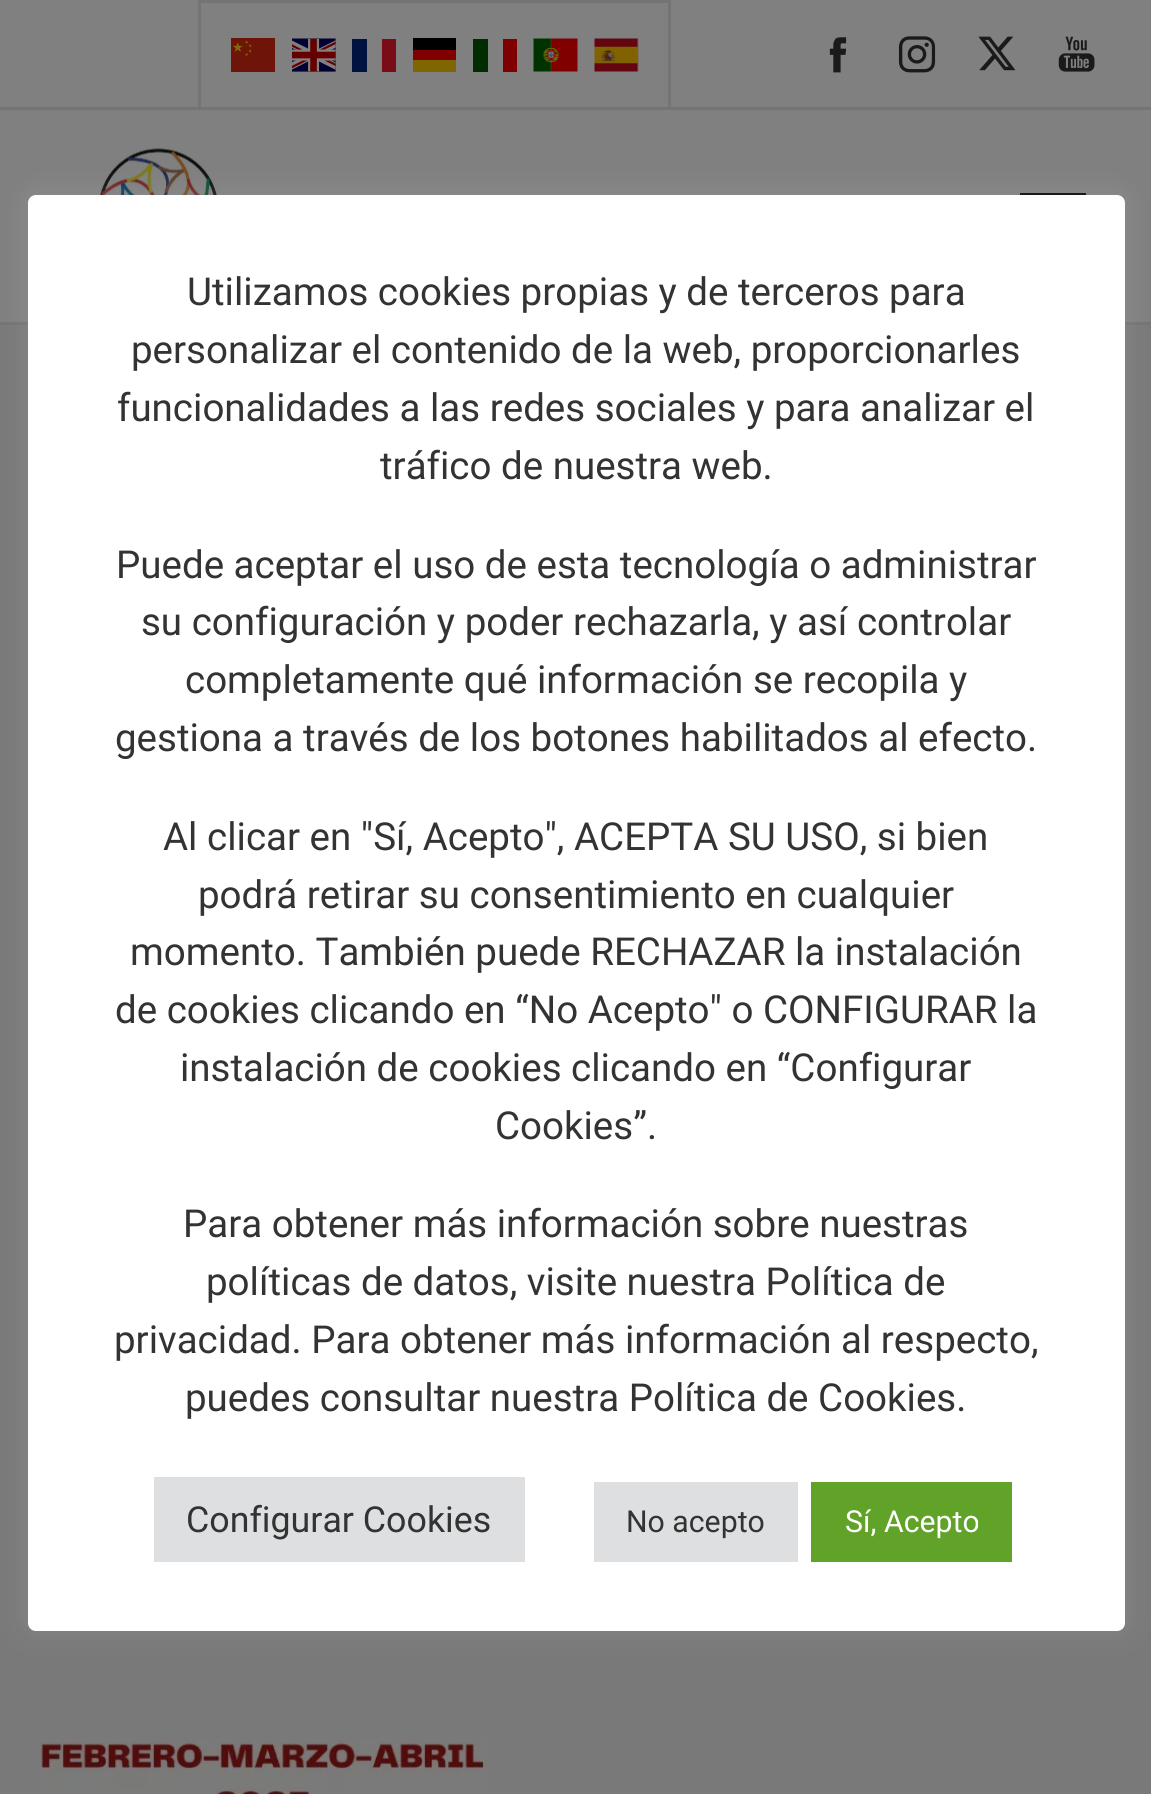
import math
import cairo



def rounded_rect(context, x, y, w, h, r):
    context.new_sub_path()
    for i, (u, v) in enumerate([(x + w - r, y + h - r), (x + r, y + h - r), (x + r, y + r), (x + w - r, y + r)]):
        context.arc(u, v, r, i * math.pi / 2, (i + 1) * math.pi / 2)
    context.close_path()


def draw_shadow(context, x, y, w, h, r, blur, alpha):
    context.push_group_with_content(cairo.Content.ALPHA)
    context.set_operator(cairo.Operator.SOURCE)
    for i in range(15, -16, -2):
        e = blur * i / 6
        if min(w, h) + 2 * e > 0:
            context.set_source_rgba(0, 0, 0, alpha * math.erfc((i - 1) / 8.5) / 2)
            rounded_rect(context, x - e, y - e, w + 2 * e, h + 2 * e, max(0, min(r + e + blur * .6, min(w, h) / 2 + e)))
            context.fill()
    context.mask(context.pop_group())


def draw_image(context, path, x, y, w, h):
    context.save()
    context.set_source_surface(cairo.ImageSurface.create_from_png(path), x, y)
    context.rectangle(x, y, w, h)
    context.fill()
    context.restore()


def draw(context):
    context.set_source_rgb(121 / 255, 121 / 255, 121 / 255)
    context.paint()
    context.set_source_rgb(116 / 255, 116 / 255, 116 / 255)
    context.rectangle(0, 322, 1151, 3)
    context.fill()
    context.set_source_rgb(128 / 255, 128 / 255, 128 / 255)
    context.rectangle(0, 0, 1151, 107)
    context.fill()
    context.set_source_rgb(116 / 255, 116 / 255, 116 / 255)
    context.rectangle(0, 107, 1151, 3)
    context.fill()
    context.rectangle(199.5, 1.5, 470, 107)
    context.set_line_width(3)
    context.stroke()
    draw_image(context, "images/1.png", 231, 38, 44, 34)
    draw_image(context, "images/2.png", 292, 38, 44, 34)
    context.set_source_rgb(0, 19 / 255, 64 / 255)
    context.rectangle(352, 39, 15, 33)
    context.fill()
    context.set_source_rgb(122 / 255, 12 / 255, 24 / 255)
    context.rectangle(382, 39, 14, 33)
    context.fill()
    context.set_source_rgb(0, 0, 0)
    context.rectangle(413, 38, 43, 12)
    context.fill()
    context.set_source_rgb(128 / 255, 0, 0)
    context.rectangle(413, 50, 43, 10)
    context.fill()
    context.set_source_rgb(128 / 255, 102 / 255, 0)
    context.rectangle(413, 60, 43, 12)
    context.fill()
    context.set_source_rgb(0, 44 / 255, 0)
    context.rectangle(473, 39, 15, 33)
    context.fill()
    context.set_source_rgb(126 / 255, 0, 0)
    context.rectangle(503, 39, 14, 33)
    context.fill()
    draw_image(context, "images/3.png", 533, 38, 45, 34)
    draw_image(context, "images/4.png", 594, 38, 45, 34)
    draw_image(context, "images/5.png", 829, 37, 18, 36)
    draw_image(context, "images/6.png", 898, 36, 38, 37)
    draw_image(context, "images/7.png", 978, 36, 38, 35)
    draw_image(context, "images/8.png", 1058, 36, 37, 36)
    context.set_source_rgb(128 / 255, 128 / 255, 128 / 255)
    context.rectangle(0, 110, 1151, 212)
    context.fill()
    draw_image(context, "images/9.png", 98, 148, 121, 47)
    context.set_source_rgb(0, 0, 0)
    context.rectangle(1020, 193, 66, 2)
    context.fill()
    context.set_source_rgb(172 / 255, 171 / 255, 171 / 255)
    draw_shadow(context, 28, 193, 1097, 1435, 8, 14, 0.3)
    context.set_source_rgb(1, 1, 1)
    rounded_rect(context, 28, 195, 1097, 1436, 8)
    context.fill()
    context.set_source_rgb(222 / 255, 223 / 255, 224 / 255)
    context.rectangle(154, 1477, 371, 85)
    context.fill()
    context.rectangle(594, 1482, 204, 80)
    context.fill()
    context.set_source_rgb(97 / 255, 162 / 255, 41 / 255)
    context.rectangle(811, 1482, 201, 80)
    context.fill()
    draw_image(context, "images/10.png", 40, 1739, 450, 55)
    context.select_font_face("Roboto")
    context.set_font_size(38.5)
    context.set_source_rgb(51 / 255, 51 / 255, 51 / 255)
    context.move_to(187, 305)
    context.show_text("Utilizamos cookies propias y de terceros para")
    context.move_to(131, 363)
    context.show_text("personalizar el contenido de la web, proporcionarles")
    context.move_to(117, 421)
    context.show_text("funcionalidades a las redes sociales y para analizar el")
    context.move_to(380, 479)
    context.show_text("tráfico de nuestra web.")
    context.move_to(116, 578)
    context.show_text("Puede aceptar el uso de esta tecnología o administrar")
    context.move_to(141, 635)
    context.show_text("su configuración y poder rechazarla, y así controlar")
    context.move_to(185, 693)
    context.show_text("completamente qué información se recopila y")
    context.move_to(115, 751)
    context.show_text("gestiona a través de los botones habilitados al efecto.")
    context.move_to(163, 850)
    context.show_text("Al clicar en \"Sí, Acepto\", ACEPTA SU USO, si bien")
    context.move_to(198, 908)
    context.show_text("podrá retirar su consentimiento en cualquier")
    context.move_to(130, 965)
    context.show_text("momento. También puede RECHAZAR la instalación")
    context.move_to(115, 1023)
    context.show_text("de cookies clicando en “No Acepto\" o CONFIGURAR la")
    context.move_to(180, 1081)
    context.show_text("instalación de cookies clicando en “Configurar")
    context.move_to(495, 1139)
    context.show_text("Cookies”.")
    context.move_to(183, 1237)
    context.show_text("Para obtener más información sobre nuestras")
    context.move_to(206, 1295)
    context.show_text("políticas de datos, visite nuestra Política de")
    context.move_to(114, 1353)
    context.show_text("privacidad. Para obtener más información al respecto,")
    context.move_to(185, 1411)
    context.show_text("puedes consultar nuestra Política de Cookies.")
    context.set_font_size(35.75)
    context.move_to(186, 1532)
    context.show_text("Configurar Cookies")
    context.set_font_size(30.25)
    context.move_to(626, 1532)
    context.show_text("No acepto")
    context.set_source_rgb(1, 1, 1)
    context.move_to(845, 1532)
    context.show_text("Sí, Acepto")


surface = cairo.ImageSurface(cairo.Format.RGB24, 1151, 1794)
context = cairo.Context(surface)
options = cairo.FontOptions()
options.set_hint_metrics(cairo.HintMetrics.OFF)
options.set_hint_style(cairo.HintStyle.NONE)
context.set_font_options(options)
context.set_miter_limit(4)
draw(context)
surface.write_to_png("out.png")
